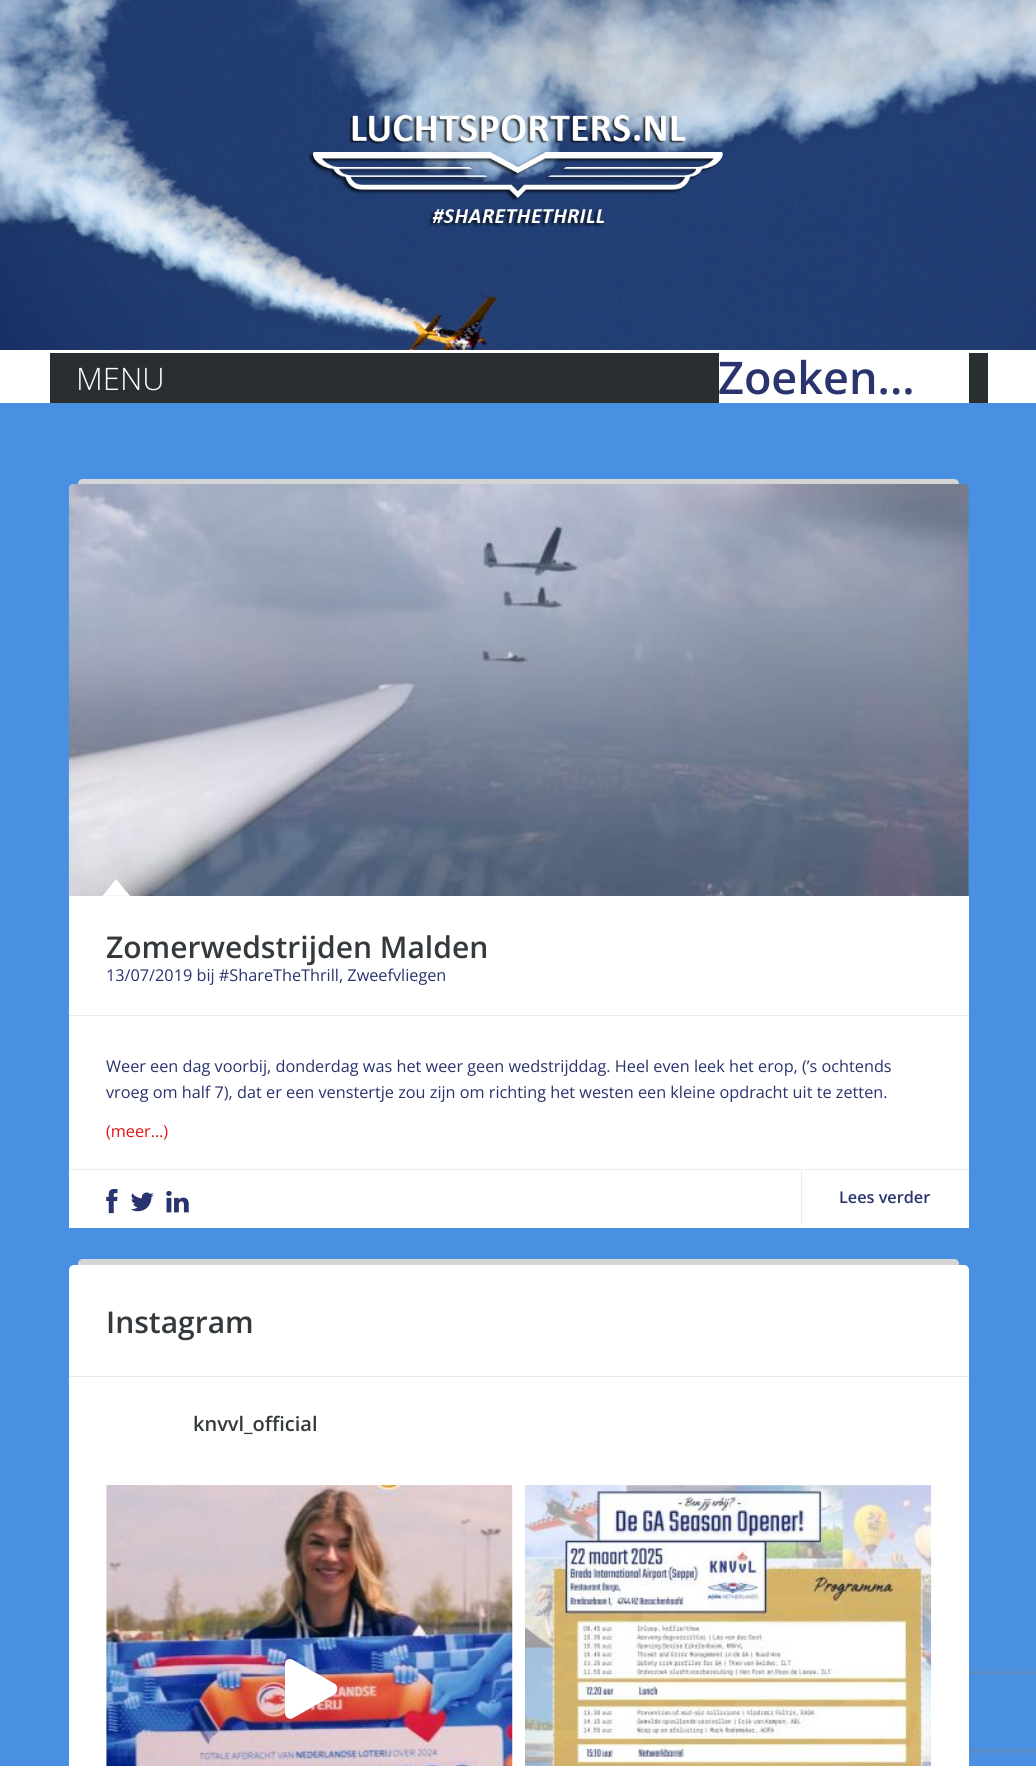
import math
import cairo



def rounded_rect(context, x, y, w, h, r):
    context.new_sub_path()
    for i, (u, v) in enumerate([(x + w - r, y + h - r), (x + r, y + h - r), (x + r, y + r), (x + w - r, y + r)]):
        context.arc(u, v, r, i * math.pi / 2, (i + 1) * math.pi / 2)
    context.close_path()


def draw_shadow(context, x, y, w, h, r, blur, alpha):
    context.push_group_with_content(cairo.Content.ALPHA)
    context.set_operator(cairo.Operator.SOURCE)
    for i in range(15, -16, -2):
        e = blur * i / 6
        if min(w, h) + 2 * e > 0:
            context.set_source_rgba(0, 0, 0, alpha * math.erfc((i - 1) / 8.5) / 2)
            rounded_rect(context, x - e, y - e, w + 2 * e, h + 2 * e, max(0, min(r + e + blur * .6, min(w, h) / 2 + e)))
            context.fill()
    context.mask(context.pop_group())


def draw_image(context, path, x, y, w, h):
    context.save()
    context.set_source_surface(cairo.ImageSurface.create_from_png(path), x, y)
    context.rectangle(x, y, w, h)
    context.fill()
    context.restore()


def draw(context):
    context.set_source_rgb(74 / 255, 144 / 255, 226 / 255)
    context.paint()
    draw_image(context, "images/1.png", 0, 0, 1036, 350)
    draw_image(context, "images/2.png", 308, 115, 415, 112)
    context.set_source_rgb(1, 1, 1)
    context.rectangle(0, 350, 1036, 53)
    context.fill()
    context.set_source_rgb(41 / 255, 47 / 255, 49 / 255)
    context.rectangle(50, 353, 938, 50)
    context.fill()
    context.set_source_rgb(1, 1, 1)
    context.rectangle(719, 353, 250, 50)
    context.fill()
    context.set_source_rgb(213 / 255, 213 / 255, 213 / 255)
    context.new_path()
    context.move_to(83, 479)
    context.line_to(954, 479)
    context.curve_to(957, 479, 959, 481, 959, 484)
    context.line_to(78, 484)
    context.curve_to(78, 481, 80, 479, 83, 479)
    context.close_path()
    context.fill()
    draw_image(context, "images/3.png", 68, 483, 901, 413)
    context.set_source_rgb(1, 1, 1)
    context.rectangle(69, 896, 900, 332)
    context.fill()
    context.new_path()
    context.move_to(130, 896)
    context.line_to(102.5, 896)
    context.line_to(116, 879)
    context.close_path()
    context.fill()
    context.set_source_rgb(245 / 255, 245 / 255, 245 / 255)
    context.rectangle(105, 895, 23, 1)
    context.fill()
    context.set_source_rgb(235 / 255, 235 / 255, 235 / 255)
    context.rectangle(69, 1015, 900, 1)
    context.fill()
    context.rectangle(69, 1169, 900, 1)
    context.fill()
    draw_image(context, "images/4.png", 106, 1189, 12, 25)
    draw_image(context, "images/5.png", 130, 1192, 24, 20)
    draw_image(context, "images/6.png", 166, 1190, 23, 23)
    context.rectangle(801, 1170, 1, 54)
    context.fill()
    context.save()
    context.set_fill_rule(cairo.FillRule.EVEN_ODD)
    context.new_path()
    context.move_to(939, 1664)
    context.line_to(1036, 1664)
    context.line_to(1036, 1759)
    context.line_to(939, 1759)
    context.close_path()
    context.move_to(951.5, 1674)
    context.line_to(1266.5, 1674)
    context.curve_to(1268, 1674, 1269, 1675, 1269, 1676.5)
    context.line_to(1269, 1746.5)
    context.curve_to(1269, 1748, 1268, 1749, 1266.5, 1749)
    context.line_to(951.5, 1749)
    context.curve_to(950, 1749, 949, 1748, 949, 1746.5)
    context.line_to(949, 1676.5)
    context.curve_to(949, 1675, 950, 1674, 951.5, 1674)
    context.close_path()
    context.clip()
    context.set_source_rgb(128 / 255, 128 / 255, 128 / 255)
    draw_shadow(context, 949, 1674, 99, 75, 2.5, 3, 1)
    context.restore()
    context.set_source_rgb(1, 1, 1)
    rounded_rect(context, 69, 1265, 900, 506, 5)
    context.fill()
    context.set_source_rgb(213 / 255, 213 / 255, 213 / 255)
    context.new_path()
    context.move_to(83, 1259)
    context.line_to(954, 1259)
    context.curve_to(957, 1259, 959, 1261, 959, 1264)
    context.line_to(959, 1265)
    context.line_to(78, 1265)
    context.line_to(78, 1264)
    context.curve_to(78, 1261, 80, 1259, 83, 1259)
    context.close_path()
    context.fill()
    context.set_source_rgb(232 / 255, 232 / 255, 232 / 255)
    context.rectangle(69, 1376, 900, 1)
    context.fill()
    draw_image(context, "images/7.png", 106, 1485, 407, 281)
    context.set_source_rgb(1, 1, 1)
    context.new_path()
    context.move_to(335, 1684)
    context.line_to(293, 1660)
    context.curve_to(290, 1658, 285, 1659, 285, 1664)
    context.line_to(285, 1713)
    context.curve_to(285, 1718, 290, 1720, 293, 1718)
    context.line_to(335, 1694)
    context.curve_to(338, 1691, 338, 1686, 335, 1684)
    context.close_path()
    context.fill()
    draw_image(context, "images/8.png", 525, 1485, 407, 281)
    context.select_font_face("Open Sans Light")
    context.set_font_size(31)
    context.move_to(76, 390)
    context.show_text("MENU")
    context.select_font_face("Open Sans SemiBold")
    context.set_font_size(45)
    context.set_source_rgb(41 / 255, 51 / 255, 110 / 255)
    context.move_to(718, 394)
    context.show_text("Zoeken...")
    context.set_font_size(30)
    context.set_source_rgb(51 / 255, 57 / 255, 61 / 255)
    context.move_to(106, 958)
    context.show_text("Zomerwedstrijden Malden")
    context.select_font_face("Open Sans")
    context.set_font_size(16.25)
    context.set_source_rgb(41 / 255, 51 / 255, 110 / 255)
    context.move_to(106, 981)
    context.show_text("13/07/2019 bij #ShareTheThrill, Zweefvliegen")
    context.move_to(106, 1072)
    context.show_text("Weer een dag voorbij, donderdag was het weer geen wedstrijddag. Heel even leek het erop, (’s ochtends")
    context.move_to(106, 1098)
    context.show_text("vroeg om half 7), dat er een venstertje zou zijn om richting het westen een kleine opdracht uit te zetten.")
    context.set_source_rgb(225 / 255, 18 / 255, 18 / 255)
    context.move_to(106, 1137)
    context.show_text("(meer…)")
    context.select_font_face("Open Sans SemiBold")
    context.set_source_rgb(41 / 255, 51 / 255, 110 / 255)
    context.move_to(839, 1203)
    context.show_text("Lees verder")
    context.set_font_size(30)
    context.set_source_rgb(51 / 255, 57 / 255, 61 / 255)
    context.move_to(106, 1333)
    context.show_text("Instagram")
    context.set_font_size(20)
    context.move_to(193, 1431)
    context.show_text("knvvl_official")


surface = cairo.ImageSurface(cairo.Format.RGB24, 1036, 1766)
context = cairo.Context(surface)
options = cairo.FontOptions()
options.set_hint_metrics(cairo.HintMetrics.OFF)
options.set_hint_style(cairo.HintStyle.NONE)
context.set_font_options(options)
context.set_miter_limit(4)
draw(context)
surface.write_to_png("out.png")
